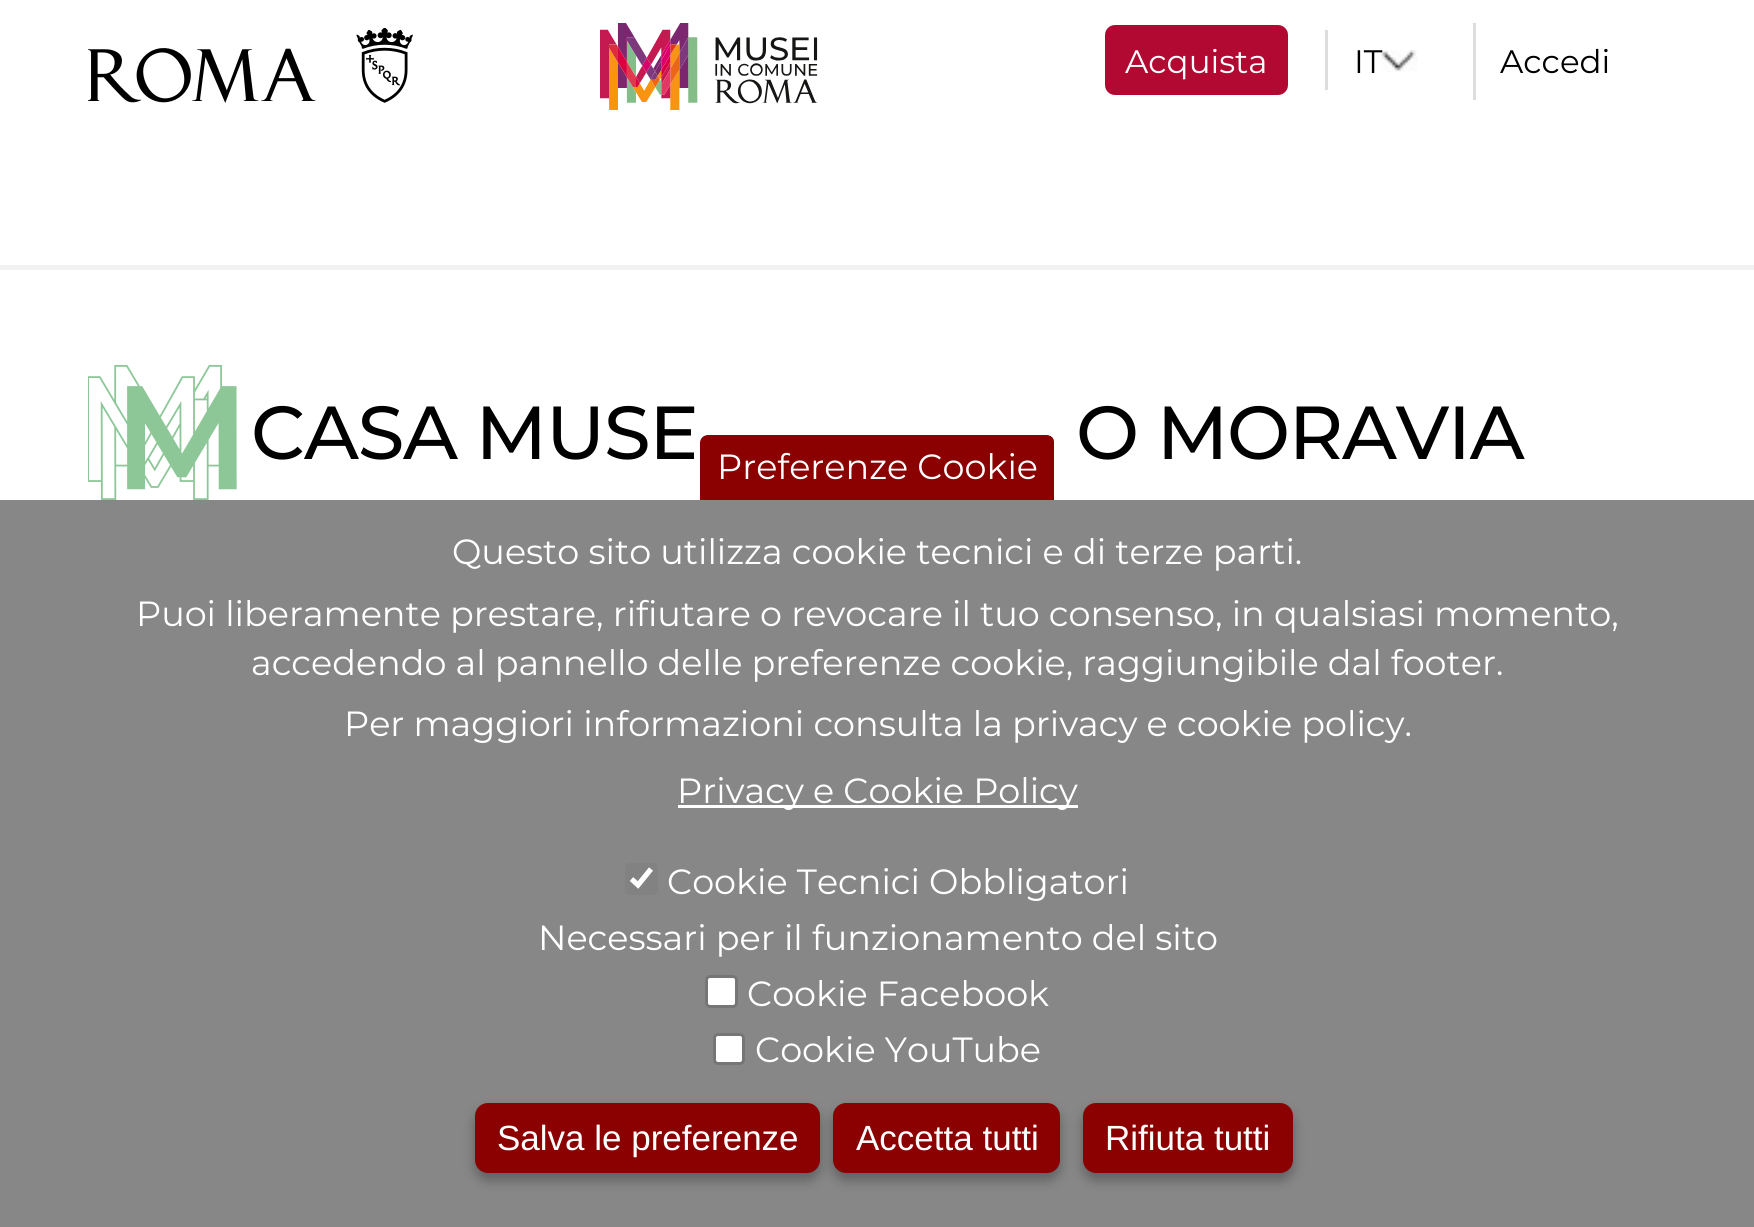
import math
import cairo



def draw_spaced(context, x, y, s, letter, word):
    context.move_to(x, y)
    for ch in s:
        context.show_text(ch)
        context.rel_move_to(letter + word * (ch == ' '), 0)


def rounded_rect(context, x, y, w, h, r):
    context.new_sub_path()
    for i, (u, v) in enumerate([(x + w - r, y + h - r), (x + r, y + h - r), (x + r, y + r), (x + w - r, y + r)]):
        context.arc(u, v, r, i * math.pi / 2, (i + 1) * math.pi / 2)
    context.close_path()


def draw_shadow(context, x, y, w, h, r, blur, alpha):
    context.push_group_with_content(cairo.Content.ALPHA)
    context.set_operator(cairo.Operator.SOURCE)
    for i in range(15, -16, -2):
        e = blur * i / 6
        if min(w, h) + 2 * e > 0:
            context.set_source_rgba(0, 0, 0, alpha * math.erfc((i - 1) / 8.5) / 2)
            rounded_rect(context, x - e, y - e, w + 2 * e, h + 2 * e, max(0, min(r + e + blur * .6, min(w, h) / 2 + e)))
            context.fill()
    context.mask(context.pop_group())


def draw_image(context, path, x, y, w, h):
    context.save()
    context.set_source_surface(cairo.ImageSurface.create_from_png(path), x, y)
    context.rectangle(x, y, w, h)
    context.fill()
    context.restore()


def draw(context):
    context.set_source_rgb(1, 1, 1)
    context.paint()
    draw_image(context, "images/1.png", 88, 28, 325, 75)
    draw_image(context, "images/2.png", 600, 23, 218, 87)
    draw_image(context, "images/3.png", 1380, 50, 38, 22)
    context.set_source_rgb(178 / 255, 9 / 255, 50 / 255)
    rounded_rect(context, 1105, 25, 183, 70, 10)
    context.fill()
    context.set_source_rgb(221 / 255, 221 / 255, 221 / 255)
    context.rectangle(1325, 30, 3, 60)
    context.fill()
    context.rectangle(1473, 23, 3, 77)
    context.fill()
    context.set_source_rgb(242 / 255, 242 / 255, 242 / 255)
    context.rectangle(0, 265, 1754, 5)
    context.fill()
    draw_image(context, "images/4.png", 88, 365, 149, 135)
    context.set_source_rgb(135 / 255, 135 / 255, 135 / 255)
    context.rectangle(0, 500, 1754, 727)
    context.fill()
    context.set_source_rgb(139 / 255, 0, 0)
    context.new_path()
    context.move_to(708, 435)
    context.line_to(1047, 435)
    context.curve_to(1051.5, 435, 1055, 438.5, 1055, 443)
    context.line_to(1055, 500)
    context.line_to(700, 500)
    context.line_to(700, 443)
    context.curve_to(700, 438.5, 703.5, 435, 708, 435)
    context.close_path()
    context.fill()
    context.set_source_rgb(1, 1, 1)
    context.rectangle(678, 805, 400, 3)
    context.fill()
    context.set_source_rgb(130 / 255, 130 / 255, 130 / 255)
    rounded_rect(context, 625, 863, 33, 32, 5)
    context.fill()
    context.new_path()
    context.move_to(631.5, 879)
    context.line_to(638, 885)
    context.line_to(651, 869)
    context.set_source_rgb(1, 1, 1)
    context.set_line_width(5.2)
    context.stroke()
    rounded_rect(context, 706.5, 976.5, 30, 30, 3.5)
    context.fill_preserve()
    context.set_source_rgb(118 / 255, 118 / 255, 118 / 255)
    context.set_line_width(3)
    context.stroke()
    context.set_source_rgb(1, 1, 1)
    rounded_rect(context, 714.5, 1034.5, 29, 29, 3.5)
    context.fill_preserve()
    context.set_source_rgb(118 / 255, 118 / 255, 118 / 255)
    context.stroke()
    context.set_source_rgb(0, 0, 0)
    draw_shadow(context, 475, 1110, 345, 70, 13, 6, 0.3)
    context.set_source_rgb(139 / 255, 0, 0)
    rounded_rect(context, 475, 1103, 345, 70, 13)
    context.fill()
    context.set_source_rgb(0, 0, 0)
    draw_shadow(context, 833, 1110, 227, 70, 13, 6, 0.3)
    context.set_source_rgb(139 / 255, 0, 0)
    rounded_rect(context, 833, 1103, 227, 70, 13)
    context.fill()
    context.set_source_rgb(0, 0, 0)
    draw_shadow(context, 1083, 1110, 210, 70, 13, 6, 0.3)
    context.set_source_rgb(139 / 255, 0, 0)
    rounded_rect(context, 1083, 1103, 210, 70, 13)
    context.fill()
    context.select_font_face("Montserrat")
    context.set_font_size(32.5)
    context.set_source_rgb(1, 1, 1)
    context.move_to(1125, 73)
    context.show_text("Acquista")
    context.set_source_rgb(0, 0, 0)
    context.move_to(1354, 73)
    context.show_text("IT")
    context.move_to(1500, 73)
    context.show_text("Accedi")
    context.select_font_face("Montserrat Medium")
    context.set_font_size(75)
    draw_spaced(context, 251, 459, "CASA MUSE", -1.25, 0)
    draw_spaced(context, 1076, 459, "O MORAVIA", -1.25, 0)
    context.set_source_rgb(1, 1, 1)
    context.set_fill_rule(cairo.FillRule.EVEN_ODD)
    context.new_path()
    context.move_to(707, 430)
    context.line_to(1047, 430)
    context.curve_to(1054, 430, 1059, 436, 1059, 442)
    context.line_to(1059, 500)
    context.line_to(694, 500)
    context.line_to(694, 442)
    context.curve_to(694, 436, 700, 430, 707, 430)
    context.close_path()
    context.move_to(707, 435)
    context.line_to(1047, 435)
    context.curve_to(1051, 435, 1054, 438, 1054, 442)
    context.line_to(1054, 500)
    context.line_to(699, 500)
    context.line_to(699, 442)
    context.curve_to(699, 438, 703, 435, 707, 435)
    context.close_path()
    context.fill()
    context.select_font_face("Montserrat")
    context.set_font_size(35)
    context.move_to(717, 479)
    context.show_text("Preferenze Cookie")
    context.move_to(452, 564)
    context.show_text("Questo sito utilizza cookie tecnici e di terze parti.")
    context.move_to(136, 626)
    context.show_text("Puoi liberamente prestare, rifiutare o revocare il tuo consenso, in qualsiasi momento,")
    context.move_to(251, 675)
    context.show_text("accedendo al pannello delle preferenze cookie, raggiungibile dal footer.")
    context.move_to(344, 736)
    context.show_text("Per maggiori informazioni consulta la privacy e cookie policy.")
    context.move_to(677, 803)
    context.show_text("Privacy e Cookie Policy")
    context.move_to(667, 894)
    context.show_text("Cookie Tecnici Obbligatori")
    context.move_to(538, 950)
    context.show_text("Necessari per il funzionamento del sito")
    context.move_to(747, 1006)
    context.show_text("Cookie Facebook")
    context.move_to(755, 1062)
    context.show_text("Cookie YouTube")
    context.select_font_face("Liberation Sans")
    context.move_to(497, 1150)
    context.show_text("Salva le preferenze")
    context.move_to(856, 1150)
    context.show_text("Accetta tutti")
    context.move_to(1105, 1150)
    context.show_text("Rifiuta tutti")


surface = cairo.ImageSurface(cairo.Format.RGB24, 1754, 1227)
context = cairo.Context(surface)
options = cairo.FontOptions()
options.set_hint_metrics(cairo.HintMetrics.OFF)
options.set_hint_style(cairo.HintStyle.NONE)
context.set_font_options(options)
context.set_miter_limit(4)
draw(context)
surface.write_to_png("out.png")
